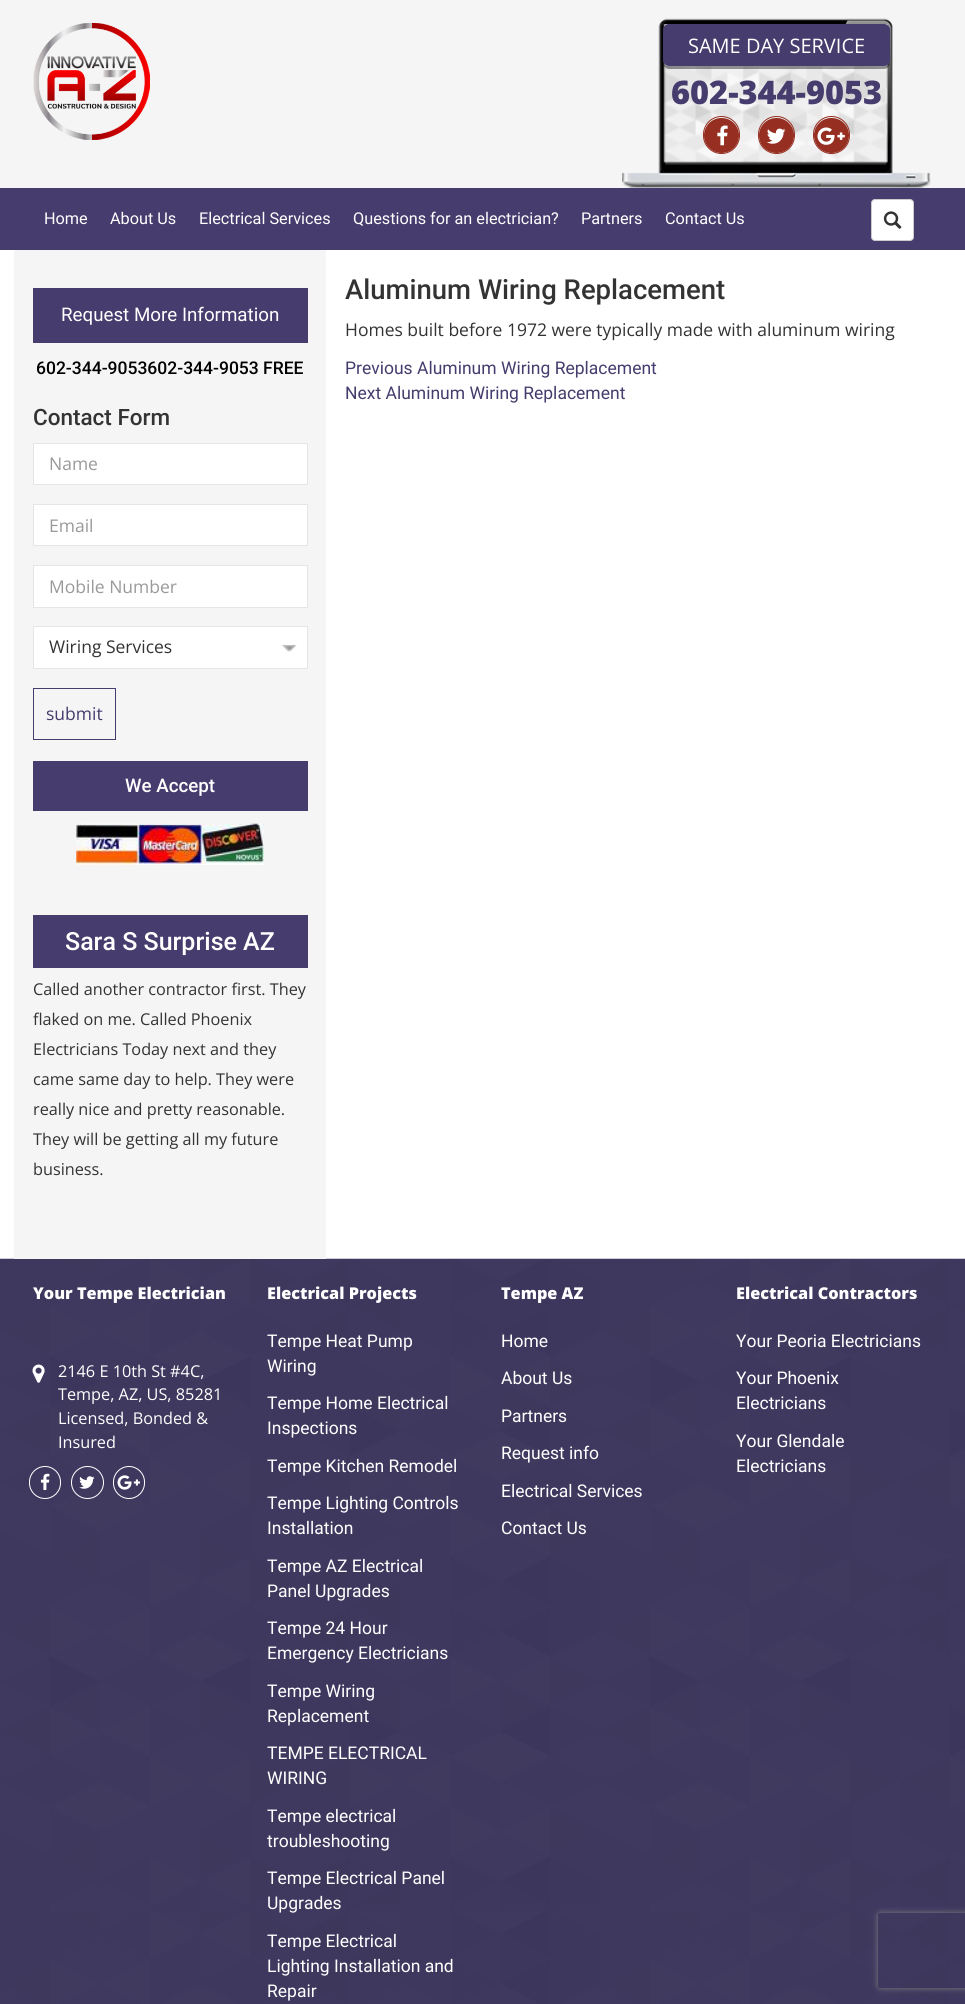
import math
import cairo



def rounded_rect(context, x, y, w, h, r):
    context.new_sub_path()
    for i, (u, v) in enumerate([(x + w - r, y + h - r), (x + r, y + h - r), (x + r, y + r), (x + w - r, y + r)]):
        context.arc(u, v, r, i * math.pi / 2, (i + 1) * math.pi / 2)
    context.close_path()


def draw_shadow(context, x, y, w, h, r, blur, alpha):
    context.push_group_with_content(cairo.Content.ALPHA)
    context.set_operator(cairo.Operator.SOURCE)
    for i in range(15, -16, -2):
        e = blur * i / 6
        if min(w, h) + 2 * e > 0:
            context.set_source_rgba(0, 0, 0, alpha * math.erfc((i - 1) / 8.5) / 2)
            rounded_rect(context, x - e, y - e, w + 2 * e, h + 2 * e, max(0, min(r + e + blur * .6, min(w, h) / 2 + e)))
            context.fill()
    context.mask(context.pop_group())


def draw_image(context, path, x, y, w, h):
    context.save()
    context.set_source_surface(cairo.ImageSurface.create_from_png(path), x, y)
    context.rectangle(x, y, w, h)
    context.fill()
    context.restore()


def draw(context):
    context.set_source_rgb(1, 1, 1)
    context.paint()
    context.set_source_rgb(245 / 255, 245 / 255, 245 / 255)
    context.rectangle(0, 0, 965, 188)
    context.fill()
    draw_image(context, "images/1.png", 33, 23, 117, 117)
    draw_image(context, "images/2.png", 622, 18, 309, 170)
    context.set_source_rgba(0, 0, 0, 0.4)
    context.new_path()
    context.move_to(663, 62)
    context.line_to(663, 63)
    context.curve_to(663, 66, 666, 69, 669, 69)
    context.line_to(884, 69)
    context.curve_to(887, 69, 890, 66, 890, 63)
    context.line_to(890, 60)
    context.curve_to(890, 63, 887, 66, 884, 66)
    context.line_to(669, 66)
    context.curve_to(666, 66, 664, 65, 663, 62)
    context.close_path()
    context.fill()
    context.set_source_rgb(70 / 255, 60 / 255, 109 / 255)
    rounded_rect(context, 663, 24, 227, 42, 6)
    context.fill()
    context.set_source_rgb(150 / 255, 46 / 255, 33 / 255)
    context.arc(721.5, 135.5, 17.5, 0, 2 * math.pi)
    context.fill()
    rounded_rect(context, 703.5, 116.5, 36, 37, 18)
    context.set_line_width(1)
    context.stroke()
    draw_image(context, "images/3.png", 717, 125, 11, 21)
    context.arc(776.5, 135.5, 17.5, 0, 2 * math.pi)
    context.fill()
    rounded_rect(context, 758.5, 116.5, 36, 37, 18)
    context.stroke()
    draw_image(context, "images/4.png", 767, 128, 19, 16)
    context.arc(831.5, 135.5, 17.5, 0, 2 * math.pi)
    context.fill()
    rounded_rect(context, 813.5, 116.5, 36, 37, 18)
    context.stroke()
    draw_image(context, "images/5.png", 817, 127, 28, 18)
    context.set_source_rgb(70 / 255, 60 / 255, 109 / 255)
    context.rectangle(0, 188, 965, 62)
    context.fill()
    context.set_source_rgb(1, 1, 1)
    rounded_rect(context, 871.5, 199.5, 42, 41, 3.5)
    context.fill_preserve()
    context.set_source_rgb(204 / 255, 204 / 255, 204 / 255)
    context.stroke()
    draw_image(context, "images/6.png", 883, 211, 19, 18)
    draw_image(context, "images/9.png", 0, 1258, 965, 746)
    context.set_source_rgb(245 / 255, 245 / 255, 245 / 255)
    context.rectangle(14, 250, 312, 1009)
    context.fill()
    context.set_source_rgb(70 / 255, 60 / 255, 109 / 255)
    context.rectangle(33, 288, 275, 55)
    context.fill()
    context.set_source_rgb(1, 1, 1)
    context.rectangle(33.5, 443.5, 274, 41)
    context.fill_preserve()
    context.set_source_rgb(229 / 255, 229 / 255, 229 / 255)
    context.stroke()
    context.set_source_rgb(1, 1, 1)
    context.rectangle(33.5, 504.5, 274, 41)
    context.fill_preserve()
    context.set_source_rgb(229 / 255, 229 / 255, 229 / 255)
    context.stroke()
    context.set_source_rgb(1, 1, 1)
    context.rectangle(33.5, 565.5, 274, 42)
    context.fill_preserve()
    context.set_source_rgb(229 / 255, 229 / 255, 229 / 255)
    context.stroke()
    context.set_source_rgb(1, 1, 1)
    context.rectangle(34, 627, 273, 41)
    context.fill()
    draw_image(context, "images/7.png", 282, 644, 15, 8)
    context.rectangle(33.5, 626.5, 274, 42)
    context.set_source_rgb(229 / 255, 229 / 255, 229 / 255)
    context.stroke()
    context.rectangle(33.5, 688.5, 82, 51)
    context.set_source_rgb(70 / 255, 60 / 255, 109 / 255)
    context.stroke()
    context.rectangle(33, 761, 275, 50)
    context.fill()
    draw_image(context, "images/8.png", 76, 823, 188, 42)
    context.rectangle(33, 915, 275, 53)
    context.fill()
    draw_image(context, "images/10.png", 32, 1364, 13, 19)
    rounded_rect(context, 29.5, 1466.5, 31, 32, 15.5)
    context.set_source_rgb(1, 1, 1)
    context.stroke()
    draw_image(context, "images/11.png", 40, 1473, 10, 17)
    context.arc(87.5, 1482.5, 16, 0, 2 * math.pi)
    context.stroke()
    draw_image(context, "images/12.png", 79, 1476, 16, 13)
    rounded_rect(context, 113.5, 1466.5, 31, 32, 15.5)
    context.stroke()
    draw_image(context, "images/13.png", 117, 1475, 23, 15)
    context.save()
    context.set_fill_rule(cairo.FillRule.EVEN_ODD)
    context.new_path()
    context.move_to(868, 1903)
    context.line_to(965, 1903)
    context.line_to(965, 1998)
    context.line_to(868, 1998)
    context.close_path()
    context.move_to(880.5, 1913)
    context.line_to(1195.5, 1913)
    context.curve_to(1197, 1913, 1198, 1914, 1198, 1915.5)
    context.line_to(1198, 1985.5)
    context.curve_to(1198, 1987, 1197, 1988, 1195.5, 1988)
    context.line_to(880.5, 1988)
    context.curve_to(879, 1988, 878, 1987, 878, 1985.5)
    context.line_to(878, 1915.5)
    context.curve_to(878, 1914, 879, 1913, 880.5, 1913)
    context.close_path()
    context.clip()
    context.set_source_rgb(128 / 255, 128 / 255, 128 / 255)
    draw_shadow(context, 878, 1913, 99, 75, 2.5, 3, 1)
    context.restore()
    context.select_font_face("Open Sans")
    context.set_font_size(20)
    context.move_to(688, 53)
    context.show_text("SAME DAY SERVICE")
    context.select_font_face("Open Sans ExtraBold")
    context.set_font_size(32.5)
    context.set_source_rgb(70 / 255, 60 / 255, 109 / 255)
    context.move_to(671, 104)
    context.show_text("602-344-9053")
    context.select_font_face("Roboto")
    context.set_font_size(16.25)
    context.set_source_rgb(1, 1, 1)
    context.move_to(44, 224)
    context.show_text("Home")
    context.move_to(110, 224)
    context.show_text("About Us")
    context.move_to(199, 224)
    context.show_text("Electrical Services")
    context.move_to(353, 224)
    context.show_text("Questions for an electrician?")
    context.move_to(581, 224)
    context.show_text("Partners")
    context.move_to(665, 224)
    context.show_text("Contact Us")
    context.set_font_size(18.75)
    context.move_to(61, 321)
    context.show_text("Request More Information")
    context.select_font_face("Roboto Medium")
    context.set_font_size(17.5)
    context.set_source_rgb(0, 0, 0)
    context.move_to(36, 374)
    context.show_text("602-344-9053602-344-9053 FREE")
    context.set_font_size(22.5)
    context.set_source_rgb(51 / 255, 51 / 255, 51 / 255)
    context.move_to(33, 425)
    context.show_text("Contact Form")
    context.select_font_face("Open Sans")
    context.set_font_size(17.5)
    context.set_source_rgb(153 / 255, 153 / 255, 153 / 255)
    context.move_to(49, 470)
    context.show_text("Name")
    context.move_to(49, 532)
    context.show_text("Email")
    context.move_to(49, 593)
    context.show_text("Mobile Number")
    context.set_source_rgb(51 / 255, 51 / 255, 51 / 255)
    context.move_to(49, 653)
    context.show_text("Wiring Services")
    context.set_source_rgb(70 / 255, 60 / 255, 109 / 255)
    context.move_to(46, 720)
    context.show_text("submit")
    context.select_font_face("Roboto Medium")
    context.set_font_size(18.75)
    context.set_source_rgb(1, 1, 1)
    context.move_to(125, 792)
    context.show_text("We Accept")
    context.set_font_size(25)
    context.move_to(65, 950)
    context.show_text("Sara S Surprise AZ")
    context.select_font_face("Open Sans")
    context.set_font_size(16.25)
    context.set_source_rgb(51 / 255, 51 / 255, 51 / 255)
    context.move_to(33, 995)
    context.show_text("Called another contractor first. They")
    context.move_to(33, 1025)
    context.show_text("flaked on me. Called Phoenix")
    context.move_to(33, 1055)
    context.show_text("Electricians Today next and they")
    context.move_to(33, 1085)
    context.show_text("came same day to help. They were")
    context.move_to(33, 1115)
    context.show_text("really nice and pretty reasonable.")
    context.move_to(33, 1145)
    context.show_text("They will be getting all my future")
    context.move_to(33, 1175)
    context.show_text("business.")
    context.select_font_face("Roboto Medium")
    context.set_font_size(27.5)
    context.move_to(345, 299)
    context.show_text("Aluminum Wiring Replacement")
    context.select_font_face("Open Sans")
    context.set_font_size(17.5)
    context.move_to(345, 336)
    context.show_text("Homes built before 1972 were typically made with aluminum wiring")
    context.select_font_face("Roboto")
    context.set_source_rgb(70 / 255, 60 / 255, 109 / 255)
    context.move_to(345, 374)
    context.show_text("Previous Aluminum Wiring Replacement")
    context.move_to(345, 399)
    context.show_text("Next Aluminum Wiring Replacement")
    context.select_font_face("Open Sans ExtraBold")
    context.set_font_size(16.25)
    context.set_source_rgb(1, 1, 1)
    context.move_to(33, 1299)
    context.show_text("Your Tempe Electrician")
    context.select_font_face("Open Sans")
    context.move_to(58, 1377)
    context.show_text("2146 E 10th St #4C,")
    context.move_to(58, 1400)
    context.show_text("Tempe, AZ, US, 85281")
    context.move_to(58, 1424)
    context.show_text("Licensed, Bonded &")
    context.move_to(58, 1448)
    context.show_text("Insured")
    context.select_font_face("Open Sans ExtraBold")
    context.move_to(267, 1299)
    context.show_text("Electrical Projects")
    context.select_font_face("Roboto")
    context.set_font_size(17.5)
    context.move_to(267, 1347)
    context.show_text("Tempe Heat Pump")
    context.move_to(267, 1372)
    context.show_text("Wiring")
    context.move_to(267, 1409)
    context.show_text("Tempe Home Electrical")
    context.move_to(267, 1434)
    context.show_text("Inspections")
    context.move_to(267, 1472)
    context.show_text("Tempe Kitchen Remodel")
    context.move_to(267, 1509)
    context.show_text("Tempe Lighting Controls")
    context.move_to(267, 1534)
    context.show_text("Installation")
    context.move_to(267, 1572)
    context.show_text("Tempe AZ Electrical")
    context.move_to(267, 1597)
    context.show_text("Panel Upgrades")
    context.move_to(267, 1634)
    context.show_text("Tempe 24 Hour")
    context.move_to(267, 1659)
    context.show_text("Emergency Electricians")
    context.move_to(267, 1697)
    context.show_text("Tempe Wiring")
    context.move_to(267, 1722)
    context.show_text("Replacement")
    context.move_to(267, 1759)
    context.show_text("TEMPE ELECTRICAL")
    context.move_to(267, 1784)
    context.show_text("WIRING")
    context.move_to(267, 1822)
    context.show_text("Tempe electrical")
    context.move_to(267, 1847)
    context.show_text("troubleshooting")
    context.move_to(267, 1884)
    context.show_text("Tempe Electrical Panel")
    context.move_to(267, 1909)
    context.show_text("Upgrades")
    context.move_to(267, 1947)
    context.show_text("Tempe Electrical")
    context.move_to(267, 1972)
    context.show_text("Lighting Installation and")
    context.move_to(267, 1997)
    context.show_text("Repair")
    context.select_font_face("Open Sans ExtraBold")
    context.set_font_size(16.25)
    context.move_to(501, 1299)
    context.show_text("Tempe AZ")
    context.select_font_face("Roboto")
    context.set_font_size(17.5)
    context.move_to(501, 1347)
    context.show_text("Home")
    context.move_to(501, 1384)
    context.show_text("About Us")
    context.move_to(501, 1422)
    context.show_text("Partners")
    context.move_to(501, 1459)
    context.show_text("Request info")
    context.move_to(501, 1497)
    context.show_text("Electrical Services")
    context.move_to(501, 1534)
    context.show_text("Contact Us")
    context.select_font_face("Open Sans ExtraBold")
    context.set_font_size(16.25)
    context.move_to(736, 1299)
    context.show_text("Electrical Contractors")
    context.select_font_face("Roboto")
    context.set_font_size(17.5)
    context.move_to(736, 1347)
    context.show_text("Your Peoria Electricians")
    context.move_to(736, 1384)
    context.show_text("Your Phoenix")
    context.move_to(736, 1409)
    context.show_text("Electricians")
    context.move_to(736, 1447)
    context.show_text("Your Glendale")
    context.move_to(736, 1472)
    context.show_text("Electricians")


surface = cairo.ImageSurface(cairo.Format.RGB24, 965, 2004)
context = cairo.Context(surface)
options = cairo.FontOptions()
options.set_hint_metrics(cairo.HintMetrics.OFF)
options.set_hint_style(cairo.HintStyle.NONE)
context.set_font_options(options)
context.set_miter_limit(4)
draw(context)
surface.write_to_png("out.png")
